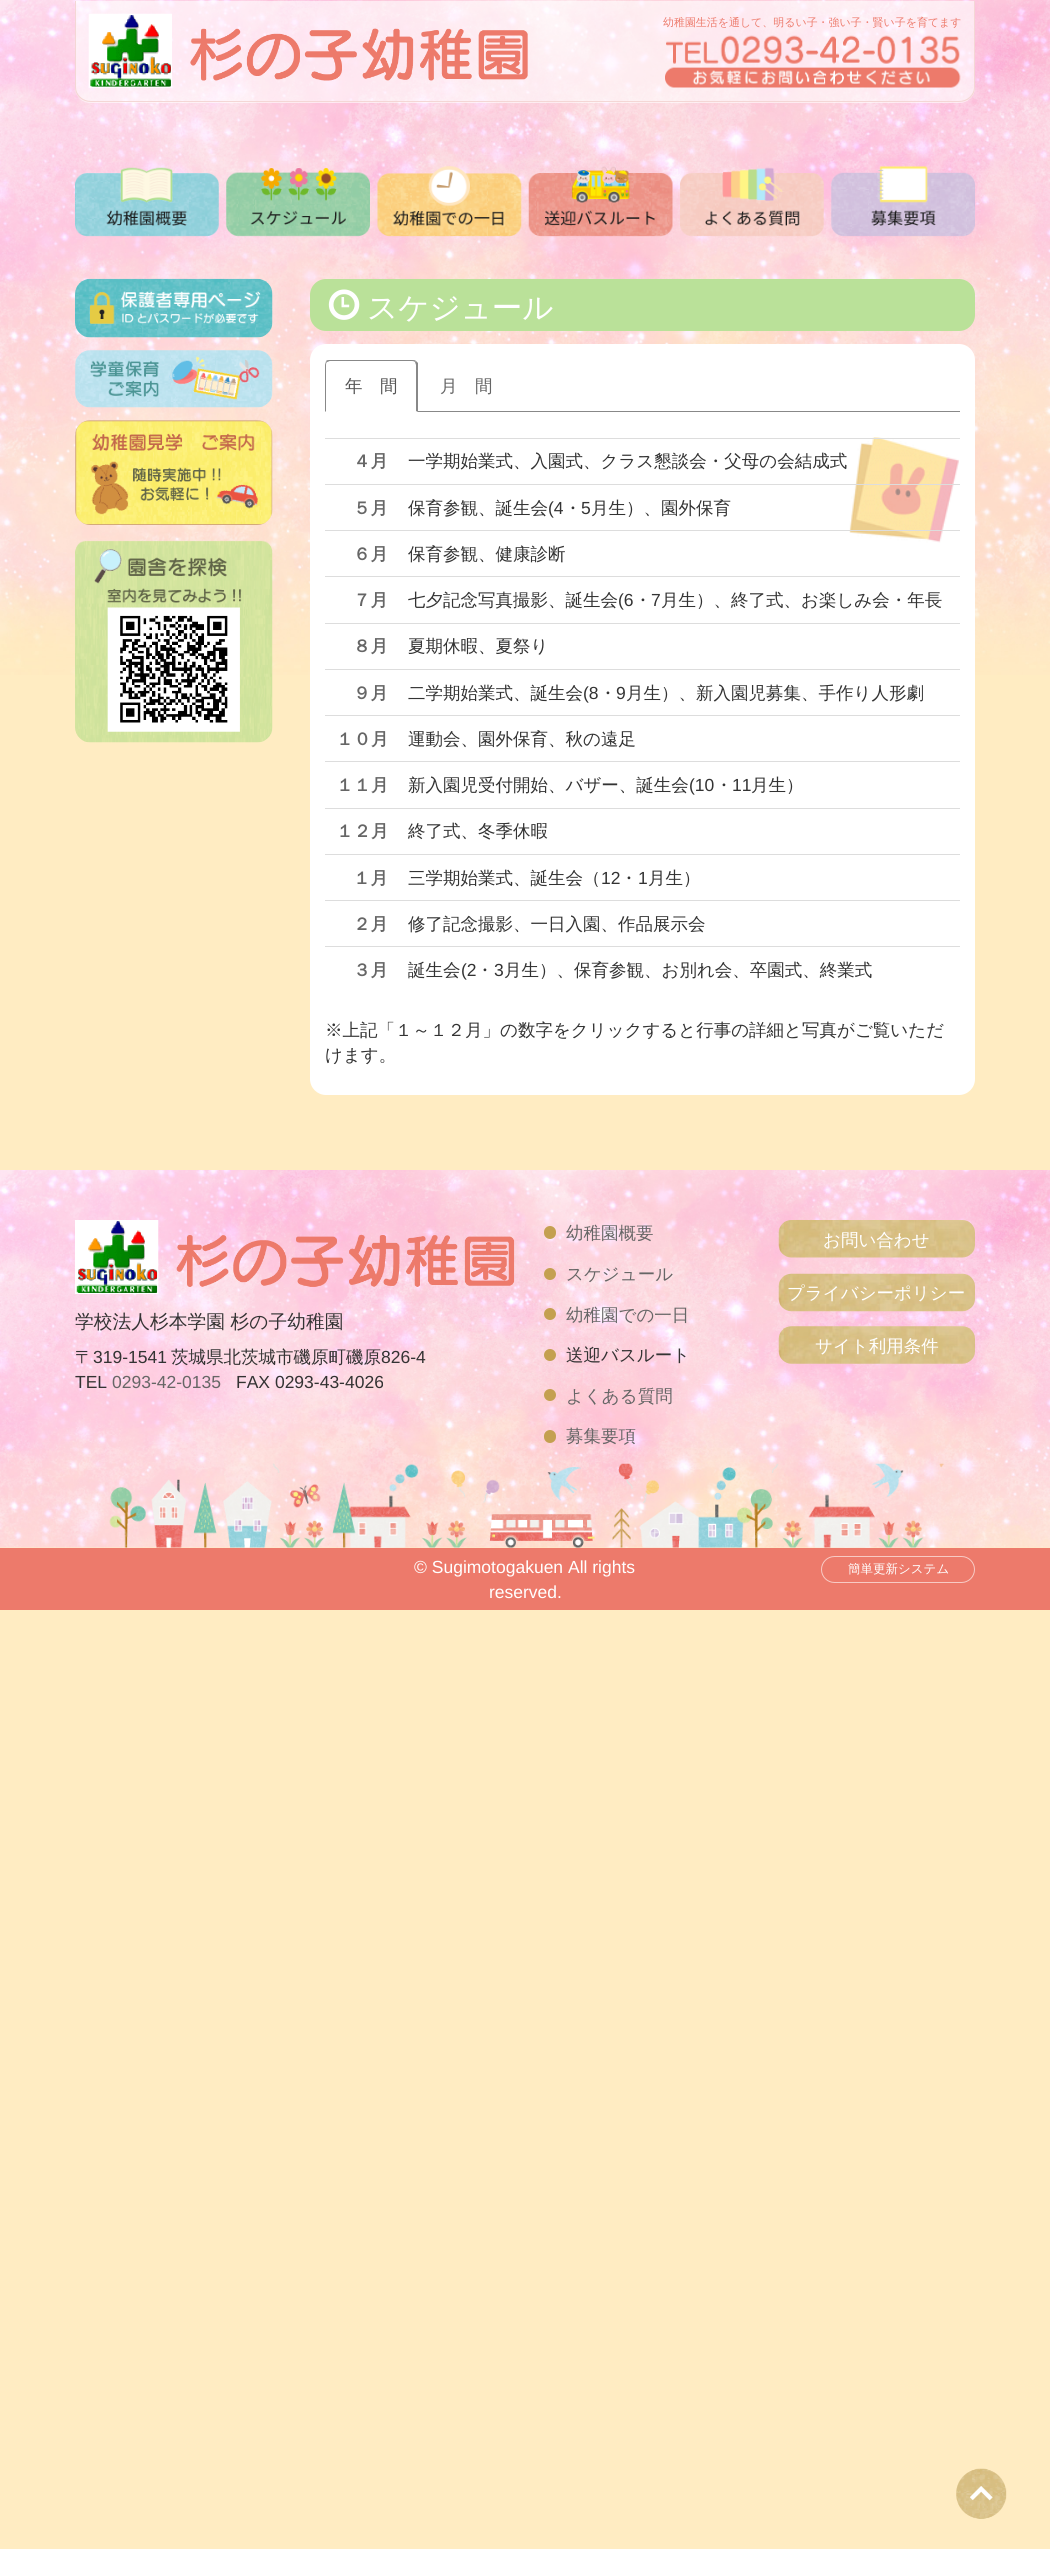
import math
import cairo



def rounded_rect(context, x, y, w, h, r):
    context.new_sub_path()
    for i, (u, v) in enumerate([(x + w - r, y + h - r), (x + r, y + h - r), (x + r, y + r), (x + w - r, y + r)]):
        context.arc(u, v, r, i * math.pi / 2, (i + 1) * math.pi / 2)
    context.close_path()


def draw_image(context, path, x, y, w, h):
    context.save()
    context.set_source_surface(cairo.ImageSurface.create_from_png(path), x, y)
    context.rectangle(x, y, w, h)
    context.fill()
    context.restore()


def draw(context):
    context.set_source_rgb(1, 236 / 255, 194 / 255)
    context.paint()
    draw_image(context, "images/1.png", 0, 0, 1050, 675)
    context.set_source_rgba(1, 1, 1, 0.6)
    context.new_path()
    context.move_to(75, 1)
    context.line_to(975, 1)
    context.line_to(975, 87)
    context.curve_to(975, 96, 968, 103, 959, 103)
    context.line_to(91, 103)
    context.curve_to(82, 103, 75, 96, 75, 87)
    context.close_path()
    context.fill()
    context.set_source_rgb(244 / 255, 215 / 255, 213 / 255)
    context.set_fill_rule(cairo.FillRule.EVEN_ODD)
    context.new_path()
    context.move_to(75, 1)
    context.line_to(975, 1)
    context.line_to(975, 87)
    context.curve_to(975, 96, 968, 102, 959, 102)
    context.line_to(91, 102)
    context.curve_to(82, 102, 75, 96, 75, 87)
    context.close_path()
    context.move_to(76, 1)
    context.line_to(974, 1)
    context.line_to(974, 87)
    context.curve_to(974, 95, 967, 101, 959, 101)
    context.line_to(91, 101)
    context.curve_to(83, 101, 76, 95, 76, 87)
    context.close_path()
    context.fill()
    draw_image(context, "images/2.png", 88, 13, 440, 75)
    draw_image(context, "images/3.png", 665, 35, 296, 53)
    draw_image(context, "images/4.png", 75, 167, 144, 70)
    draw_image(context, "images/5.png", 226, 168, 144, 69)
    draw_image(context, "images/6.png", 377, 166, 145, 71)
    draw_image(context, "images/7.png", 528, 166, 145, 71)
    draw_image(context, "images/8.png", 680, 167, 144, 70)
    draw_image(context, "images/9.png", 831, 166, 144, 71)
    draw_image(context, "images/10.png", 75, 278, 198, 60)
    draw_image(context, "images/11.png", 75, 350, 198, 58)
    draw_image(context, "images/12.png", 75, 420, 198, 105)
    draw_image(context, "images/13.png", 75, 540, 198, 203)
    context.set_source_rgb(186 / 255, 225 / 255, 153 / 255)
    rounded_rect(context, 310, 279, 665, 52, 16)
    context.fill()
    draw_image(context, "images/14.png", 328, 289, 32, 31)
    context.set_source_rgb(1, 1, 1)
    rounded_rect(context, 310, 344, 665, 751, 16)
    context.fill()
    context.set_source_rgb(136 / 255, 136 / 255, 136 / 255)
    context.rectangle(418, 411, 542, 1)
    context.fill()
    context.set_fill_rule(cairo.FillRule.WINDING)
    context.new_path()
    context.move_to(330, 360)
    context.curve_to(328, 360, 327, 360, 326, 361)
    context.line_to(327, 362)
    context.curve_to(328, 362, 329, 361, 330, 361)
    context.line_to(412, 361)
    context.curve_to(414, 361, 415, 362, 415, 362)
    context.line_to(416, 361)
    context.curve_to(415, 360, 414, 360, 412, 360)
    context.close_path()
    context.fill()
    context.new_path()
    context.move_to(418, 412)
    context.line_to(416, 411)
    context.line_to(416, 365)
    context.line_to(415, 362)
    context.line_to(416, 361)
    context.line_to(418, 363)
    context.close_path()
    context.fill()
    context.new_path()
    context.move_to(325, 365)
    context.line_to(325, 412)
    context.line_to(326, 411)
    context.line_to(326, 365)
    context.curve_to(326, 364, 326, 363, 327, 362)
    context.line_to(326, 361)
    context.curve_to(326, 362, 325, 364, 325, 365)
    context.close_path()
    context.fill()
    draw_image(context, "images/15.png", 849, 437, 110, 106)
    context.set_source_rgb(221 / 255, 221 / 255, 221 / 255)
    context.rectangle(325, 438, 635, 1)
    context.fill()
    context.rectangle(325, 484, 635, 1)
    context.fill()
    context.rectangle(325, 530, 635, 1)
    context.fill()
    context.rectangle(325, 576, 635, 1)
    context.fill()
    context.rectangle(325, 623, 635, 1)
    context.fill()
    context.rectangle(325, 669, 635, 1)
    context.fill()
    context.rectangle(325, 715, 635, 1)
    context.fill()
    context.rectangle(325, 761, 635, 1)
    context.fill()
    context.rectangle(325, 808, 635, 1)
    context.fill()
    context.rectangle(325, 854, 635, 1)
    context.fill()
    context.rectangle(325, 900, 635, 1)
    context.fill()
    context.rectangle(325, 946, 635, 1)
    context.fill()
    draw_image(context, "images/16.png", 956, 2468, 51, 51)
    draw_image(context, "images/17.png", 0, 1170, 1050, 378)
    draw_image(context, "images/18.png", 75, 1220, 440, 74)
    context.set_source_rgb(196 / 255, 160 / 255, 80 / 255)
    rounded_rect(context, 544, 1226, 12, 13, 6)
    context.fill()
    context.arc(550, 1274, 6, 0, 2 * math.pi)
    context.fill()
    context.arc(550, 1314, 6, 0, 2 * math.pi)
    context.fill()
    context.arc(550, 1355, 6, 0, 2 * math.pi)
    context.fill()
    context.arc(550, 1395, 6, 0, 2 * math.pi)
    context.fill()
    rounded_rect(context, 544, 1430, 12, 13, 6)
    context.fill()
    draw_image(context, "images/19.png", 778, 1220, 197, 38)
    draw_image(context, "images/20.png", 778, 1273, 197, 39)
    draw_image(context, "images/21.png", 778, 1326, 197, 38)
    draw_image(context, "images/22.png", 109, 1463, 835, 85)
    context.set_source_rgb(237 / 255, 122 / 255, 107 / 255)
    context.rectangle(0, 1548, 1050, 62)
    context.fill()
    rounded_rect(context, 821.5, 1556.5, 153, 26, 13)
    context.set_source_rgb(248 / 255, 202 / 255, 196 / 255)
    context.set_line_width(1)
    context.stroke()
    context.select_font_face("WenQuanYi Zen Hei Medium")
    context.set_font_size(10.95)
    context.set_source_rgb(237 / 255, 122 / 255, 107 / 255)
    context.move_to(663, 26)
    context.show_text("幼稚園生活を通して、明るい子・強い子・賢い子を育てます")
    context.set_font_size(30.5)
    context.set_source_rgb(1, 1, 1)
    context.move_to(367, 318)
    context.show_text("スケジュール")
    context.set_font_size(17.5)
    context.set_source_rgb(85 / 255, 85 / 255, 85 / 255)
    context.move_to(345, 392)
    context.show_text("年　間")
    context.set_source_rgb(102 / 255, 102 / 255, 102 / 255)
    context.move_to(440, 392)
    context.show_text("月　間")
    context.select_font_face("WenQuanYi Zen Hei", cairo.FontSlant.NORMAL, cairo.FontWeight.BOLD)
    context.move_to(353, 467)
    context.show_text("４月")
    context.select_font_face("WenQuanYi Zen Hei Medium")
    context.set_source_rgb(51 / 255, 51 / 255, 51 / 255)
    context.move_to(408, 467)
    context.show_text("一学期始業式、入園式、クラス懇談会・父母の会結成式")
    context.select_font_face("WenQuanYi Zen Hei", cairo.FontSlant.NORMAL, cairo.FontWeight.BOLD)
    context.set_source_rgb(102 / 255, 102 / 255, 102 / 255)
    context.move_to(353, 514)
    context.show_text("５月")
    context.select_font_face("WenQuanYi Zen Hei Medium")
    context.set_source_rgb(51 / 255, 51 / 255, 51 / 255)
    context.move_to(408, 514)
    context.show_text("保育参観、誕生会")
    context.select_font_face("Liberation Sans")
    context.move_to(548, 514)
    context.show_text("(4")
    context.select_font_face("WenQuanYi Zen Hei Medium")
    context.move_to(564, 514)
    context.show_text("・")
    context.select_font_face("Liberation Sans")
    context.move_to(581, 514)
    context.show_text("5")
    context.select_font_face("WenQuanYi Zen Hei Medium")
    context.move_to(591, 514)
    context.show_text("月生）、園外保育")
    context.select_font_face("WenQuanYi Zen Hei", cairo.FontSlant.NORMAL, cairo.FontWeight.BOLD)
    context.set_source_rgb(102 / 255, 102 / 255, 102 / 255)
    context.move_to(353, 560)
    context.show_text("６月")
    context.select_font_face("WenQuanYi Zen Hei Medium")
    context.set_source_rgb(51 / 255, 51 / 255, 51 / 255)
    context.move_to(408, 560)
    context.show_text("保育参観、健康診断")
    context.select_font_face("WenQuanYi Zen Hei", cairo.FontSlant.NORMAL, cairo.FontWeight.BOLD)
    context.set_source_rgb(102 / 255, 102 / 255, 102 / 255)
    context.move_to(353, 606)
    context.show_text("７月")
    context.select_font_face("WenQuanYi Zen Hei Medium")
    context.set_source_rgb(51 / 255, 51 / 255, 51 / 255)
    context.move_to(408, 606)
    context.show_text("七夕記念写真撮影、誕生会")
    context.select_font_face("Liberation Sans")
    context.move_to(618, 606)
    context.show_text("(6")
    context.select_font_face("WenQuanYi Zen Hei Medium")
    context.move_to(634, 606)
    context.show_text("・")
    context.select_font_face("Liberation Sans")
    context.move_to(651, 606)
    context.show_text("7")
    context.select_font_face("WenQuanYi Zen Hei Medium")
    context.move_to(661, 606)
    context.show_text("月生）、終了式、お楽しみ会・年長")
    context.select_font_face("WenQuanYi Zen Hei", cairo.FontSlant.NORMAL, cairo.FontWeight.BOLD)
    context.set_source_rgb(102 / 255, 102 / 255, 102 / 255)
    context.move_to(353, 652)
    context.show_text("８月")
    context.select_font_face("WenQuanYi Zen Hei Medium")
    context.set_source_rgb(51 / 255, 51 / 255, 51 / 255)
    context.move_to(408, 652)
    context.show_text("夏期休暇、夏祭り")
    context.select_font_face("WenQuanYi Zen Hei", cairo.FontSlant.NORMAL, cairo.FontWeight.BOLD)
    context.set_source_rgb(102 / 255, 102 / 255, 102 / 255)
    context.move_to(353, 699)
    context.show_text("９月")
    context.select_font_face("WenQuanYi Zen Hei Medium")
    context.set_source_rgb(51 / 255, 51 / 255, 51 / 255)
    context.move_to(408, 699)
    context.show_text("二学期始業式、誕生会")
    context.select_font_face("Liberation Sans")
    context.move_to(583, 699)
    context.show_text("(8")
    context.select_font_face("WenQuanYi Zen Hei Medium")
    context.move_to(599, 699)
    context.show_text("・")
    context.select_font_face("Liberation Sans")
    context.move_to(616, 699)
    context.show_text("9")
    context.select_font_face("WenQuanYi Zen Hei Medium")
    context.move_to(626, 699)
    context.show_text("月生）、新入園児募集、手作り人形劇")
    context.select_font_face("WenQuanYi Zen Hei", cairo.FontSlant.NORMAL, cairo.FontWeight.BOLD)
    context.set_source_rgb(102 / 255, 102 / 255, 102 / 255)
    context.move_to(336, 745)
    context.show_text("１０月")
    context.select_font_face("WenQuanYi Zen Hei Medium")
    context.set_source_rgb(51 / 255, 51 / 255, 51 / 255)
    context.move_to(408, 745)
    context.show_text("運動会、園外保育、秋の遠足")
    context.select_font_face("WenQuanYi Zen Hei", cairo.FontSlant.NORMAL, cairo.FontWeight.BOLD)
    context.set_source_rgb(102 / 255, 102 / 255, 102 / 255)
    context.move_to(336, 791)
    context.show_text("１１月")
    context.select_font_face("WenQuanYi Zen Hei Medium")
    context.set_source_rgb(51 / 255, 51 / 255, 51 / 255)
    context.move_to(408, 791)
    context.show_text("新入園児受付開始、バザー、誕生会")
    context.select_font_face("Liberation Sans")
    context.move_to(689, 791)
    context.show_text("(10")
    context.select_font_face("WenQuanYi Zen Hei Medium")
    context.move_to(715, 791)
    context.show_text("・")
    context.select_font_face("Liberation Sans")
    context.move_to(732, 791)
    context.show_text("11")
    context.select_font_face("WenQuanYi Zen Hei Medium")
    context.move_to(751, 791)
    context.show_text("月生）")
    context.select_font_face("WenQuanYi Zen Hei", cairo.FontSlant.NORMAL, cairo.FontWeight.BOLD)
    context.set_source_rgb(102 / 255, 102 / 255, 102 / 255)
    context.move_to(336, 837)
    context.show_text("１２月")
    context.select_font_face("WenQuanYi Zen Hei Medium")
    context.set_source_rgb(51 / 255, 51 / 255, 51 / 255)
    context.move_to(408, 837)
    context.show_text("終了式、冬季休暇")
    context.select_font_face("WenQuanYi Zen Hei", cairo.FontSlant.NORMAL, cairo.FontWeight.BOLD)
    context.set_source_rgb(102 / 255, 102 / 255, 102 / 255)
    context.move_to(353, 884)
    context.show_text("１月")
    context.select_font_face("WenQuanYi Zen Hei Medium")
    context.set_source_rgb(51 / 255, 51 / 255, 51 / 255)
    context.move_to(408, 884)
    context.show_text("三学期始業式、誕生会（")
    context.select_font_face("Liberation Sans")
    context.move_to(601, 884)
    context.show_text("12")
    context.select_font_face("WenQuanYi Zen Hei Medium")
    context.move_to(620, 884)
    context.show_text("・")
    context.select_font_face("Liberation Sans")
    context.move_to(638, 884)
    context.show_text("1")
    context.select_font_face("WenQuanYi Zen Hei Medium")
    context.move_to(648, 884)
    context.show_text("月生）")
    context.select_font_face("WenQuanYi Zen Hei", cairo.FontSlant.NORMAL, cairo.FontWeight.BOLD)
    context.set_source_rgb(102 / 255, 102 / 255, 102 / 255)
    context.move_to(353, 930)
    context.show_text("２月")
    context.select_font_face("WenQuanYi Zen Hei Medium")
    context.set_source_rgb(51 / 255, 51 / 255, 51 / 255)
    context.move_to(408, 930)
    context.show_text("修了記念撮影、一日入園、作品展示会")
    context.select_font_face("WenQuanYi Zen Hei", cairo.FontSlant.NORMAL, cairo.FontWeight.BOLD)
    context.set_source_rgb(102 / 255, 102 / 255, 102 / 255)
    context.move_to(353, 976)
    context.show_text("３月")
    context.select_font_face("WenQuanYi Zen Hei Medium")
    context.set_source_rgb(51 / 255, 51 / 255, 51 / 255)
    context.move_to(408, 976)
    context.show_text("誕生会")
    context.select_font_face("Liberation Sans")
    context.move_to(461, 976)
    context.show_text("(2")
    context.select_font_face("WenQuanYi Zen Hei Medium")
    context.move_to(476, 976)
    context.show_text("・")
    context.select_font_face("Liberation Sans")
    context.move_to(494, 976)
    context.show_text("3")
    context.select_font_face("WenQuanYi Zen Hei Medium")
    context.move_to(504, 976)
    context.show_text("月生）、保育参観、お別れ会、卒園式、終業式")
    context.move_to(325, 1036)
    context.show_text("※上記「１～１２月」の数字をクリックすると行事の詳細と写真がご覧いただ")
    context.move_to(325, 1061)
    context.show_text("けます。")
    context.set_font_size(18.75)
    context.move_to(75, 1328)
    context.show_text("学校法人杉本学園 杉の子幼稚園")
    context.set_font_size(17.5)
    context.move_to(75, 1363)
    context.show_text("〒")
    context.select_font_face("Liberation Sans")
    context.move_to(93, 1363)
    context.show_text("319-1541")
    context.select_font_face("WenQuanYi Zen Hei Medium")
    context.move_to(171, 1363)
    context.show_text("茨城県北茨城市磯原町磯原")
    context.select_font_face("Liberation Sans")
    context.move_to(381, 1363)
    context.show_text("826-4")
    context.move_to(75, 1388)
    context.show_text("TEL")
    context.set_source_rgb(102 / 255, 102 / 255, 102 / 255)
    context.move_to(112, 1388)
    context.show_text("0293-42-0135")
    context.set_source_rgb(51 / 255, 51 / 255, 51 / 255)
    context.move_to(236, 1388)
    context.show_text("FAX 0293-43-4026")
    context.select_font_face("WenQuanYi Zen Hei Medium")
    context.set_source_rgb(102 / 255, 102 / 255, 102 / 255)
    context.move_to(566, 1239)
    context.show_text("幼稚園概要")
    context.move_to(566, 1280)
    context.show_text("スケジュール")
    context.move_to(566, 1321)
    context.show_text("幼稚園での一日")
    context.set_source_rgb(51 / 255, 51 / 255, 51 / 255)
    context.move_to(566, 1361)
    context.show_text("送迎バスルート")
    context.set_source_rgb(102 / 255, 102 / 255, 102 / 255)
    context.move_to(566, 1402)
    context.show_text("よくある質問")
    context.move_to(566, 1442)
    context.show_text("募集要項")
    context.set_source_rgb(1, 1, 1)
    context.move_to(823, 1246)
    context.show_text("お問い合わせ")
    context.move_to(787, 1299)
    context.show_text("プライバシーポリシー")
    context.move_to(815, 1352)
    context.show_text("サイト利用条件")
    context.select_font_face("Liberation Sans")
    context.move_to(414, 1573)
    context.show_text("© Sugimotogakuen All rights")
    context.move_to(489, 1598)
    context.show_text("reserved.")
    context.select_font_face("WenQuanYi Zen Hei Medium")
    context.set_font_size(12.5)
    context.move_to(848, 1573)
    context.show_text("簡単更新システム")


surface = cairo.ImageSurface(cairo.Format.RGB24, 1050, 2549)
context = cairo.Context(surface)
options = cairo.FontOptions()
options.set_hint_metrics(cairo.HintMetrics.OFF)
options.set_hint_style(cairo.HintStyle.NONE)
context.set_font_options(options)
context.set_miter_limit(4)
draw(context)
surface.write_to_png("out.png")
